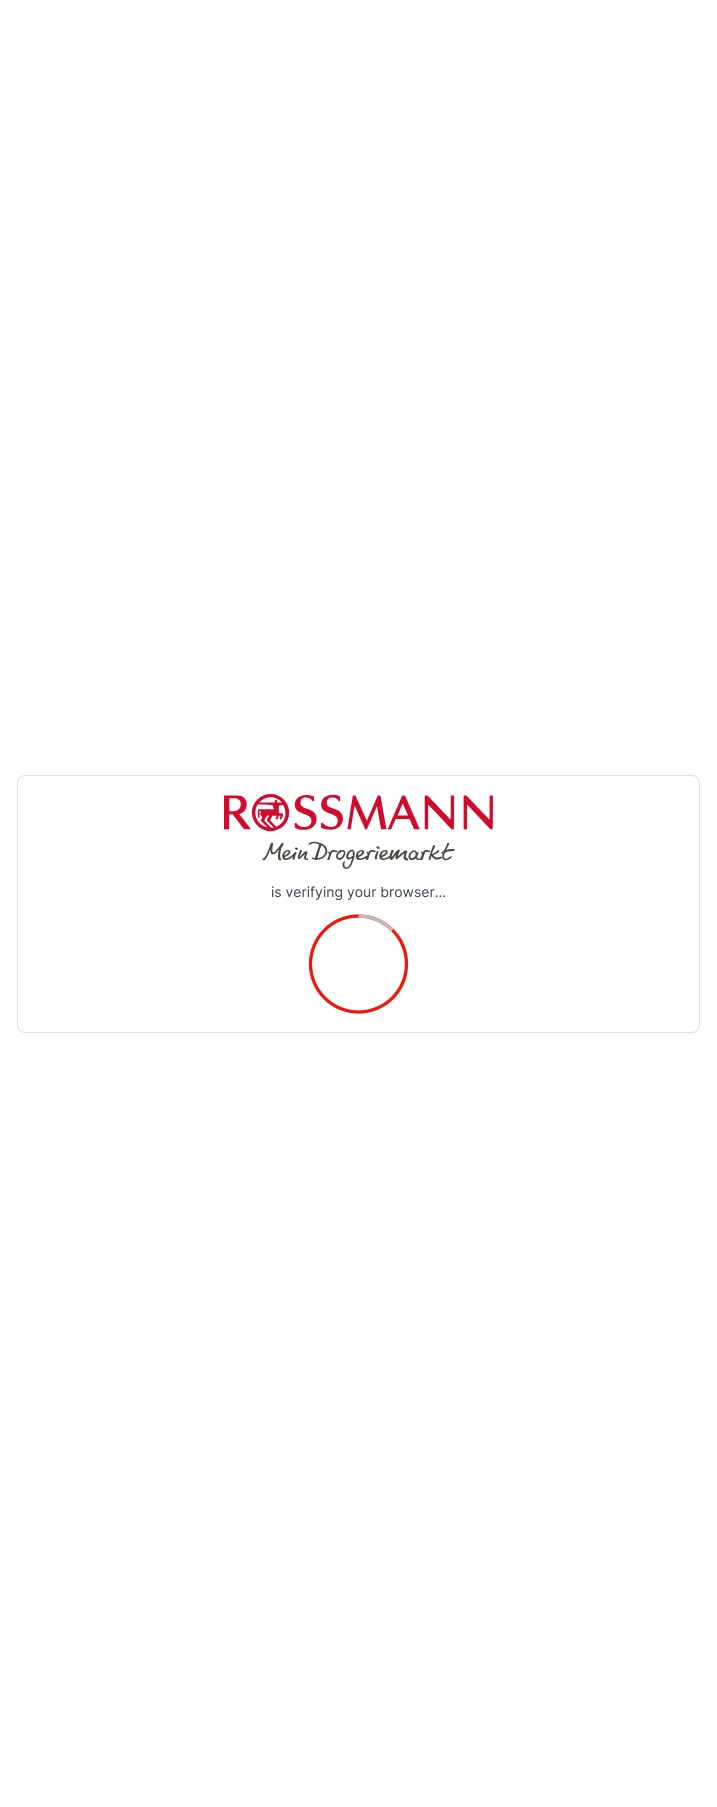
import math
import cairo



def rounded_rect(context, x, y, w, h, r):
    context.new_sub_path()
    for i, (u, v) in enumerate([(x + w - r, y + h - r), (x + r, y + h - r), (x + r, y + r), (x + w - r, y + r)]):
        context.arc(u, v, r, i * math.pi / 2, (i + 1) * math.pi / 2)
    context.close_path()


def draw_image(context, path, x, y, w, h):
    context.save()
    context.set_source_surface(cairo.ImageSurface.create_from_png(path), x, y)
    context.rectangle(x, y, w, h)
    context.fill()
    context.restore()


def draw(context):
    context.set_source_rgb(1, 1, 1)
    context.paint()
    rounded_rect(context, 17.5, 775.5, 682, 257, 7.5)
    context.set_source_rgb(220 / 255, 224 / 255, 228 / 255)
    context.set_line_width(1)
    context.stroke()
    draw_image(context, "images/1.png", 224, 794, 269, 75)
    context.new_path()
    context.move_to(310.5, 964)
    context.curve_to(310.5, 937.5, 332, 916, 358.5, 916)
    context.curve_to(385, 916, 406.5, 937.5, 406.5, 964)
    context.curve_to(406.5, 990.5, 385, 1012, 358.5, 1012)
    context.curve_to(332, 1012, 310.5, 990.5, 310.5, 964)
    context.close_path()
    context.set_source_rgb(235 / 255, 26 / 255, 12 / 255)
    context.set_line_width(3.3)
    context.stroke()
    context.new_path()
    context.move_to(392.5, 930)
    context.curve_to(383.5, 921, 371.5, 916, 358.5, 916)
    context.set_source_rgb(194 / 255, 186 / 255, 181 / 255)
    context.stroke()
    context.select_font_face("Inter")
    context.set_font_size(14)
    context.set_source_rgb(58 / 255, 66 / 255, 74 / 255)
    context.move_to(271, 897)
    context.show_text("is verifying your browser...")


surface = cairo.ImageSurface(cairo.Format.RGB24, 717, 1807)
context = cairo.Context(surface)
options = cairo.FontOptions()
options.set_hint_metrics(cairo.HintMetrics.OFF)
options.set_hint_style(cairo.HintStyle.NONE)
context.set_font_options(options)
context.set_miter_limit(4)
draw(context)
surface.write_to_png("out.png")
